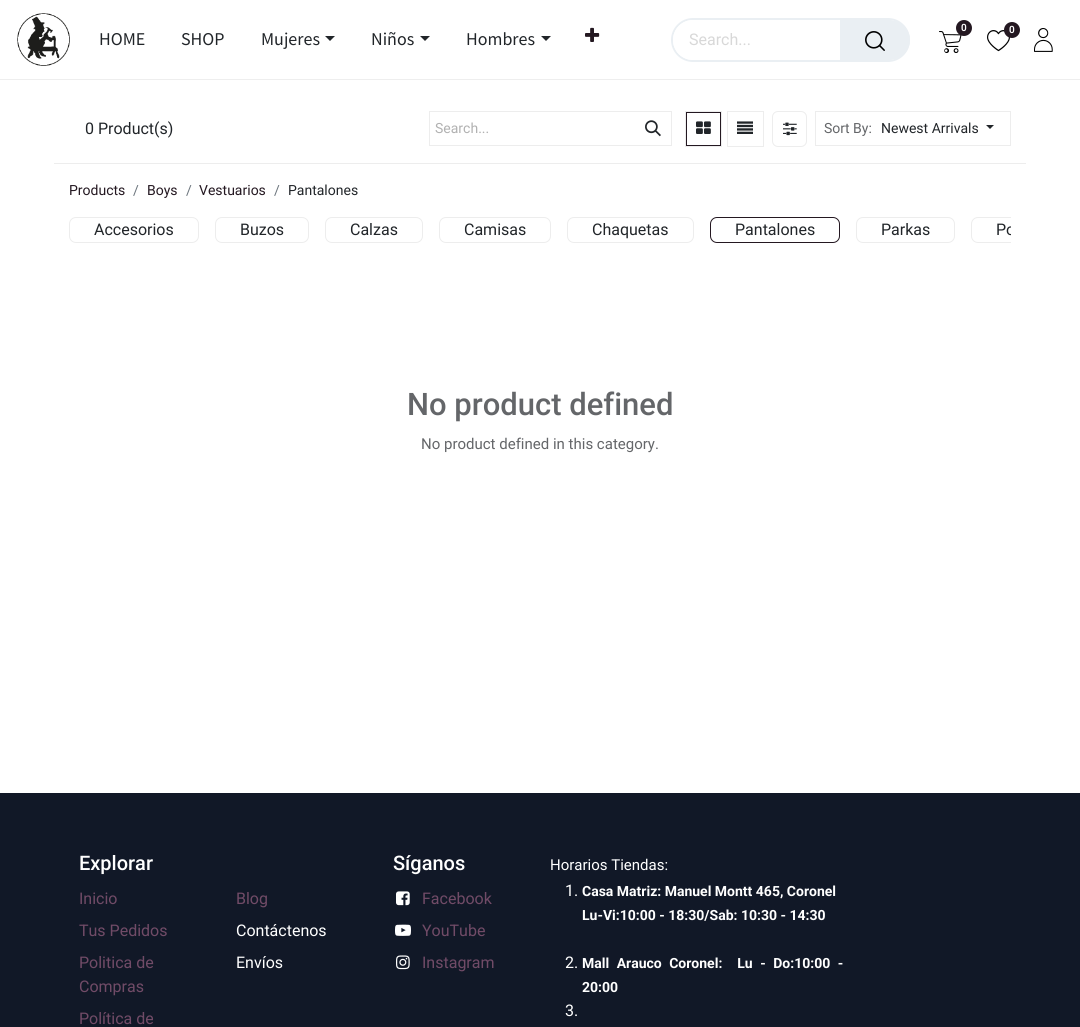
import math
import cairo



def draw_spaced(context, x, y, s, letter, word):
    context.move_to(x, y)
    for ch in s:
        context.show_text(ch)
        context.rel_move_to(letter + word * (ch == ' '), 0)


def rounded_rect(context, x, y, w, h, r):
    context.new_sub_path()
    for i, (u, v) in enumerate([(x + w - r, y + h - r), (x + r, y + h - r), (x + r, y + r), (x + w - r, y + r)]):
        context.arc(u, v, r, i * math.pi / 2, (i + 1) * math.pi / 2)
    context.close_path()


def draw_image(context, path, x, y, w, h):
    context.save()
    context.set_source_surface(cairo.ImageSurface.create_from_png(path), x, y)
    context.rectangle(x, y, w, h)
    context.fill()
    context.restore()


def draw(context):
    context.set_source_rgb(1, 1, 1)
    context.paint()
    context.set_source_rgb(238 / 255, 238 / 255, 238 / 255)
    context.rectangle(0, 79, 1080, 1)
    context.fill()
    draw_image(context, "images/1.png", 17, 13, 53, 53)
    draw_image(context, "images/2.png", 939, 31, 23, 22)
    context.set_source_rgb(36 / 255, 24 / 255, 33 / 255)
    context.arc(964, 28, 8, 0, 2 * math.pi)
    context.fill()
    draw_image(context, "images/3.png", 987, 30, 23, 22)
    context.arc(1012, 30, 8, 0, 2 * math.pi)
    context.fill()
    draw_image(context, "images/4.png", 1034, 28, 19, 24)
    context.set_source_rgb(33 / 255, 37 / 255, 41 / 255)
    context.new_path()
    context.move_to(325, 36)
    context.line_to(335, 36)
    context.line_to(330, 41)
    context.close_path()
    context.fill()
    context.new_path()
    context.move_to(420, 36)
    context.line_to(430, 36)
    context.line_to(425, 41)
    context.close_path()
    context.fill()
    context.new_path()
    context.move_to(541, 36)
    context.line_to(551, 36)
    context.line_to(546, 41)
    context.close_path()
    context.fill()
    draw_image(context, "images/5.png", 585, 27, 15, 15)
    rounded_rect(context, 672, 19, 237, 42, 21)
    context.set_source_rgb(234 / 255, 239 / 255, 243 / 255)
    context.stroke()
    context.set_source_rgb(1, 1, 1)
    rounded_rect(context, 673, 20, 235, 40, 20)
    context.fill()
    context.set_source_rgb(234 / 255, 239 / 255, 243 / 255)
    context.new_path()
    context.move_to(840, 20)
    context.line_to(890, 20)
    context.curve_to(901, 20, 910, 29, 910, 40)
    context.curve_to(910, 51, 901, 60, 890, 60)
    context.line_to(840, 60)
    context.close_path()
    context.fill()
    draw_image(context, "images/6.png", 865, 31, 20, 20)
    context.set_source_rgb(237 / 255, 237 / 255, 237 / 255)
    context.rectangle(54, 163, 972, 1)
    context.fill()
    context.rectangle(429.5, 111.5, 242, 34)
    context.set_line_width(1)
    context.stroke()
    draw_image(context, "images/7.png", 645, 120, 16, 17)
    context.rectangle(686.5, 112.5, 34, 33)
    context.set_source_rgb(36 / 255, 24 / 255, 33 / 255)
    context.stroke()
    context.rectangle(685.5, 111.5, 36, 35)
    context.set_source_rgb(237 / 255, 237 / 255, 237 / 255)
    context.stroke()
    draw_image(context, "images/8.png", 696, 121, 15, 13)
    context.rectangle(727.5, 111.5, 36, 35)
    context.stroke()
    draw_image(context, "images/9.png", 737, 121, 16, 13)
    rounded_rect(context, 772.5, 111.5, 34, 35, 5.5)
    context.stroke()
    draw_image(context, "images/10.png", 783, 122, 14, 14)
    context.rectangle(815.5, 111.5, 195, 34)
    context.stroke()
    context.set_source_rgb(33 / 255, 37 / 255, 41 / 255)
    context.new_path()
    context.move_to(986, 125)
    context.line_to(994, 125)
    context.line_to(990, 129)
    context.close_path()
    context.fill()
    rounded_rect(context, 69.5, 217.5, 129, 25, 6.5)
    context.set_source_rgb(237 / 255, 237 / 255, 237 / 255)
    context.stroke()
    rounded_rect(context, 215.5, 217.5, 93, 25, 6.5)
    context.stroke()
    rounded_rect(context, 325.5, 217.5, 97, 25, 6.5)
    context.stroke()
    rounded_rect(context, 439.5, 217.5, 111, 25, 6.5)
    context.stroke()
    rounded_rect(context, 567.5, 217.5, 126, 25, 6.5)
    context.stroke()
    rounded_rect(context, 710.5, 217.5, 129, 25, 6.5)
    context.set_source_rgb(36 / 255, 24 / 255, 33 / 255)
    context.stroke()
    rounded_rect(context, 856.5, 217.5, 98, 25, 6.5)
    context.set_source_rgb(237 / 255, 237 / 255, 237 / 255)
    context.stroke()
    context.save()
    context.rectangle(69, 217, 942, 33)
    context.clip()
    rounded_rect(context, 971.5, 217.5, 103, 25, 6.5)
    context.stroke()
    context.restore()
    context.set_source_rgb(17 / 255, 24 / 255, 39 / 255)
    context.rectangle(0, 793, 1080, 234)
    context.fill()
    draw_image(context, "images/11.png", 396, 891, 14, 15)
    draw_image(context, "images/12.png", 395, 924, 16, 12)
    draw_image(context, "images/13.png", 396, 955, 14, 15)
    context.select_font_face("Roboto SemiBold")
    context.set_font_size(10)
    context.set_source_rgb(1, 1, 1)
    context.move_to(961, 31)
    context.show_text("0")
    context.move_to(1009, 33)
    context.show_text("0")
    context.select_font_face("Source Sans Pro")
    context.set_font_size(18)
    context.set_source_rgb(33 / 255, 37 / 255, 41 / 255)
    context.move_to(99, 45)
    context.show_text("HOME")
    context.move_to(181, 45)
    context.show_text("SHOP")
    context.move_to(261, 45)
    context.show_text("Mujeres")
    context.move_to(371, 45)
    context.show_text("Niños")
    context.move_to(466, 45)
    context.show_text("Hombres")
    context.select_font_face("Roboto")
    context.set_font_size(16)
    context.set_source_rgb(216 / 255, 216 / 255, 216 / 255)
    context.move_to(689, 45)
    context.show_text("Search...")
    context.set_source_rgb(33 / 255, 37 / 255, 41 / 255)
    context.move_to(85, 134)
    context.show_text("0 Product(s)")
    context.set_font_size(14)
    context.set_source_rgb(177 / 255, 177 / 255, 177 / 255)
    context.move_to(435, 133)
    context.show_text("Search...")
    context.set_source_rgb(100 / 255, 102 / 255, 105 / 255)
    context.move_to(824, 133)
    context.show_text("Sort By:")
    context.set_source_rgb(33 / 255, 37 / 255, 41 / 255)
    context.move_to(881, 133)
    context.show_text("Newest Arrivals")
    context.set_source_rgb(36 / 255, 24 / 255, 33 / 255)
    context.move_to(69, 195)
    context.show_text("Products")
    context.set_source_rgb(108 / 255, 117 / 255, 125 / 255)
    context.move_to(133, 195)
    context.show_text("/")
    context.set_source_rgb(36 / 255, 24 / 255, 33 / 255)
    context.move_to(147, 195)
    context.show_text("Boys")
    context.set_source_rgb(108 / 255, 117 / 255, 125 / 255)
    context.move_to(186, 195)
    context.show_text("/")
    context.set_source_rgb(36 / 255, 24 / 255, 33 / 255)
    context.move_to(199, 195)
    context.show_text("Vestuarios")
    context.set_source_rgb(108 / 255, 117 / 255, 125 / 255)
    context.move_to(274, 195)
    context.show_text("/")
    context.set_source_rgb(33 / 255, 37 / 255, 41 / 255)
    context.move_to(288, 195)
    context.show_text("Pantalones")
    context.set_font_size(16)
    context.move_to(94, 235)
    context.show_text("Accesorios")
    context.move_to(240, 235)
    context.show_text("Buzos")
    context.move_to(350, 235)
    context.show_text("Calzas")
    context.move_to(464, 235)
    context.show_text("Camisas")
    context.move_to(592, 235)
    context.show_text("Chaquetas")
    context.move_to(735, 235)
    context.show_text("Pantalones")
    context.move_to(881, 235)
    context.show_text("Parkas")
    context.save()
    context.rectangle(69, 217, 942, 33)
    context.clip()
    context.move_to(996, 235)
    context.show_text("Po")
    context.restore()
    context.select_font_face("Roboto Medium")
    context.set_font_size(31)
    context.set_source_rgb(100 / 255, 102 / 255, 105 / 255)
    context.move_to(407, 415)
    context.show_text("No product defined")
    context.select_font_face("Roboto")
    context.set_font_size(15)
    context.move_to(421, 449)
    context.show_text("No product defined in this category.")
    context.select_font_face("Roboto Medium")
    context.set_font_size(20)
    context.set_source_rgb(1, 1, 1)
    context.move_to(79, 870)
    context.show_text("Explorar")
    context.select_font_face("Roboto")
    context.set_font_size(16)
    context.set_source_rgb(113 / 255, 75 / 255, 103 / 255)
    context.move_to(79, 904)
    context.show_text("Inicio")
    context.move_to(79, 936)
    context.show_text("Tus Pedidos")
    context.move_to(79, 968)
    context.show_text("Politica de")
    context.move_to(79, 992)
    context.show_text("Compras")
    context.move_to(79, 1024)
    context.show_text("Política de")
    context.move_to(236, 904)
    context.show_text("Blog")
    context.set_source_rgb(1, 1, 1)
    context.move_to(236, 936)
    context.show_text("Contáctenos")
    context.move_to(236, 968)
    context.show_text("Envíos")
    context.select_font_face("Roboto Medium")
    context.set_font_size(20)
    context.move_to(393, 870)
    context.show_text("Síganos")
    context.select_font_face("Roboto")
    context.set_font_size(16)
    context.set_source_rgb(113 / 255, 75 / 255, 103 / 255)
    context.move_to(422, 904)
    context.show_text("Facebook")
    context.move_to(422, 936)
    context.show_text("YouTube")
    context.move_to(422, 968)
    context.show_text("Instagram")
    context.set_font_size(15)
    context.set_source_rgb(1, 1, 1)
    context.move_to(550, 870)
    context.show_text("Horarios Tiendas:")
    context.set_font_size(16)
    context.move_to(565, 896)
    context.show_text("1.")
    context.select_font_face("Roboto", cairo.FontSlant.NORMAL, cairo.FontWeight.BOLD)
    context.set_font_size(14)
    context.move_to(582, 896)
    context.show_text("Casa Matriz: Manuel Montt 465, Coronel")
    context.move_to(582, 920)
    context.show_text("Lu-Vi:10:00 - 18:30/Sab: 10:30 - 14:30")
    context.select_font_face("Roboto")
    context.set_font_size(16)
    context.move_to(565, 968)
    context.show_text("2.")
    context.select_font_face("Roboto", cairo.FontSlant.NORMAL, cairo.FontWeight.BOLD)
    context.set_font_size(14)
    draw_spaced(context, 582, 968, "Mall Arauco Coronel:  Lu - Do:10:00 -", 0, 4)
    context.move_to(582, 992)
    context.show_text("20:00")
    context.select_font_face("Roboto")
    context.set_font_size(16)
    context.move_to(565, 1016)
    context.show_text("3.")


surface = cairo.ImageSurface(cairo.Format.RGB24, 1080, 1027)
context = cairo.Context(surface)
options = cairo.FontOptions()
options.set_hint_metrics(cairo.HintMetrics.OFF)
options.set_hint_style(cairo.HintStyle.NONE)
context.set_font_options(options)
context.set_miter_limit(4)
draw(context)
surface.write_to_png("out.png")
